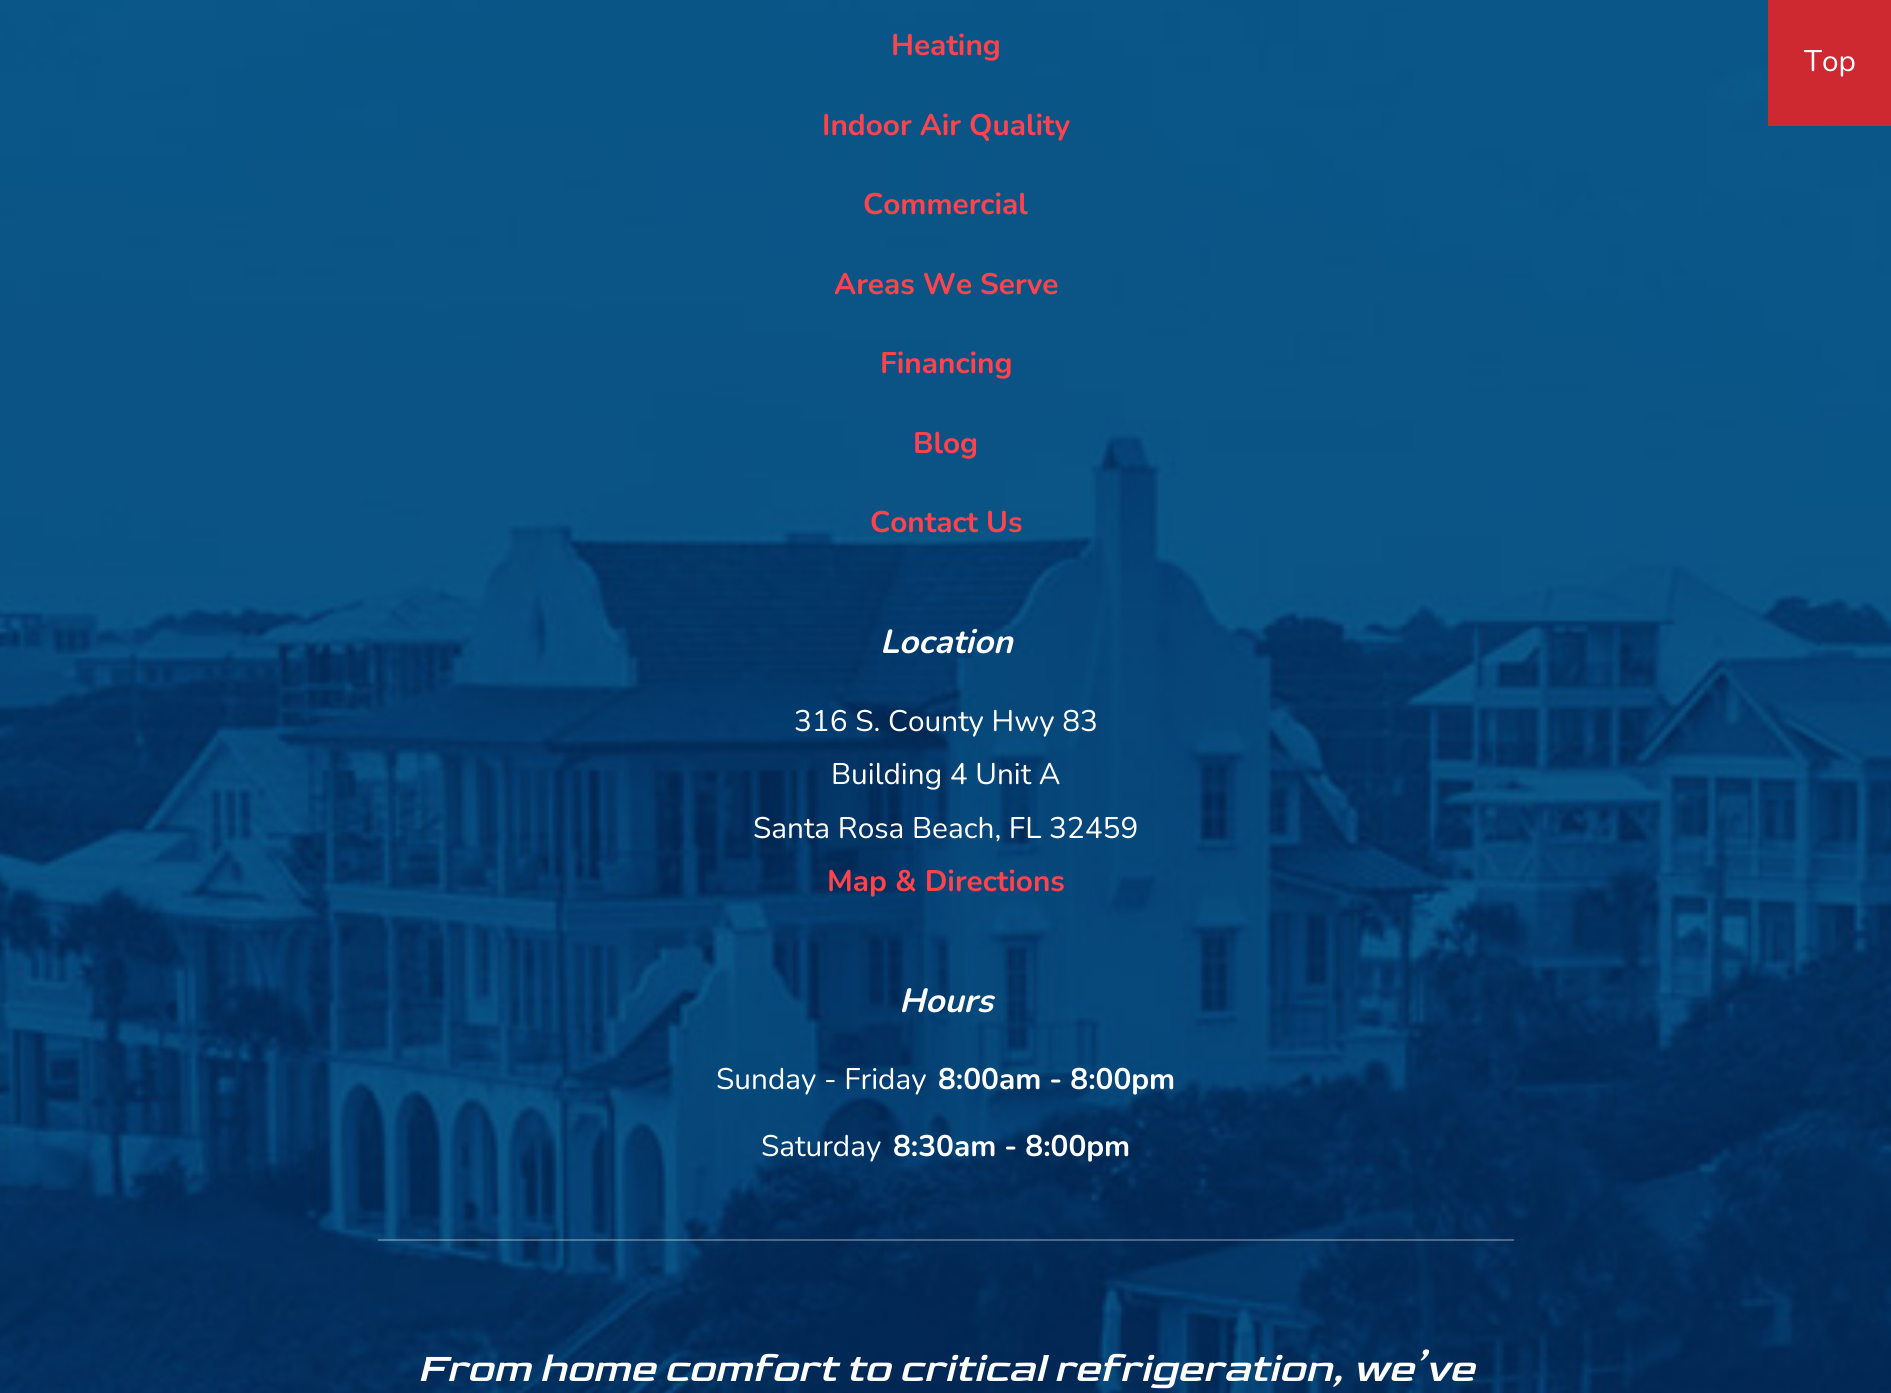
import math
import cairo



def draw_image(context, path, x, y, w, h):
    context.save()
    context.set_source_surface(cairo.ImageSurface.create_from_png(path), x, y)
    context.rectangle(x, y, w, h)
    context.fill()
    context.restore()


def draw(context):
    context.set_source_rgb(1, 1, 1)
    context.paint()
    draw_image(context, "images/1.png", 0, 0, 1891, 1393)
    context.set_source_rgba(1, 1, 1, 0.3)
    context.rectangle(378, 1239, 1136, 2)
    context.fill()
    context.set_source_rgb(206 / 255, 40 / 255, 48 / 255)
    context.rectangle(1768, 0, 123, 126)
    context.fill()
    context.select_font_face("Nunito", cairo.FontSlant.NORMAL, cairo.FontWeight.BOLD)
    context.set_font_size(29.75)
    context.set_source_rgb(1, 66 / 255, 75 / 255)
    context.move_to(891, 55)
    context.show_text("Heating")
    context.move_to(822, 135)
    context.show_text("Indoor Air Quality")
    context.move_to(863, 214)
    context.show_text("Commercial")
    context.move_to(834, 294)
    context.show_text("Areas We Serve")
    context.move_to(880, 373)
    context.show_text("Financing")
    context.move_to(913, 453)
    context.show_text("Blog")
    context.move_to(870, 532)
    context.show_text("Contact Us")
    context.select_font_face("Nunito", cairo.FontSlant.ITALIC, cairo.FontWeight.BOLD)
    context.set_font_size(33.5)
    context.set_source_rgb(1, 1, 1)
    context.move_to(880, 653)
    context.show_text("Location")
    context.select_font_face("Nunito")
    context.set_font_size(29.75)
    context.move_to(794, 731)
    context.show_text("316 S. County Hwy 83")
    context.move_to(831, 784)
    context.show_text("Building 4 Unit A")
    context.move_to(753, 838)
    context.show_text("Santa Rosa Beach, FL 32459")
    context.select_font_face("Nunito", cairo.FontSlant.NORMAL, cairo.FontWeight.BOLD)
    context.set_source_rgb(1, 66 / 255, 75 / 255)
    context.move_to(827, 891)
    context.show_text("Map & Directions")
    context.select_font_face("Nunito", cairo.FontSlant.ITALIC, cairo.FontWeight.BOLD)
    context.set_font_size(33.5)
    context.set_source_rgb(1, 1, 1)
    context.move_to(899, 1012)
    context.show_text("Hours")
    context.select_font_face("Nunito")
    context.set_font_size(29.75)
    context.move_to(716, 1089)
    context.show_text("Sunday - Friday")
    context.select_font_face("Nunito", cairo.FontSlant.NORMAL, cairo.FontWeight.BOLD)
    context.move_to(938, 1089)
    context.show_text("8:00am - 8:00pm")
    context.select_font_face("Nunito")
    context.move_to(761, 1156)
    context.show_text("Saturday")
    context.select_font_face("Nunito", cairo.FontSlant.NORMAL, cairo.FontWeight.BOLD)
    context.move_to(893, 1156)
    context.show_text("8:30am - 8:00pm")
    context.select_font_face("Goldman", cairo.FontSlant.ITALIC)
    context.set_font_size(40.9)
    context.move_to(417, 1381)
    context.show_text("From home comfort to critical refrigeration, we’ve")
    context.select_font_face("Nunito")
    context.set_font_size(29.75)
    context.move_to(1804, 71)
    context.show_text("Top")


surface = cairo.ImageSurface(cairo.Format.RGB24, 1891, 1393)
context = cairo.Context(surface)
options = cairo.FontOptions()
options.set_hint_metrics(cairo.HintMetrics.OFF)
options.set_hint_style(cairo.HintStyle.NONE)
context.set_font_options(options)
context.set_miter_limit(4)
draw(context)
surface.write_to_png("out.png")
